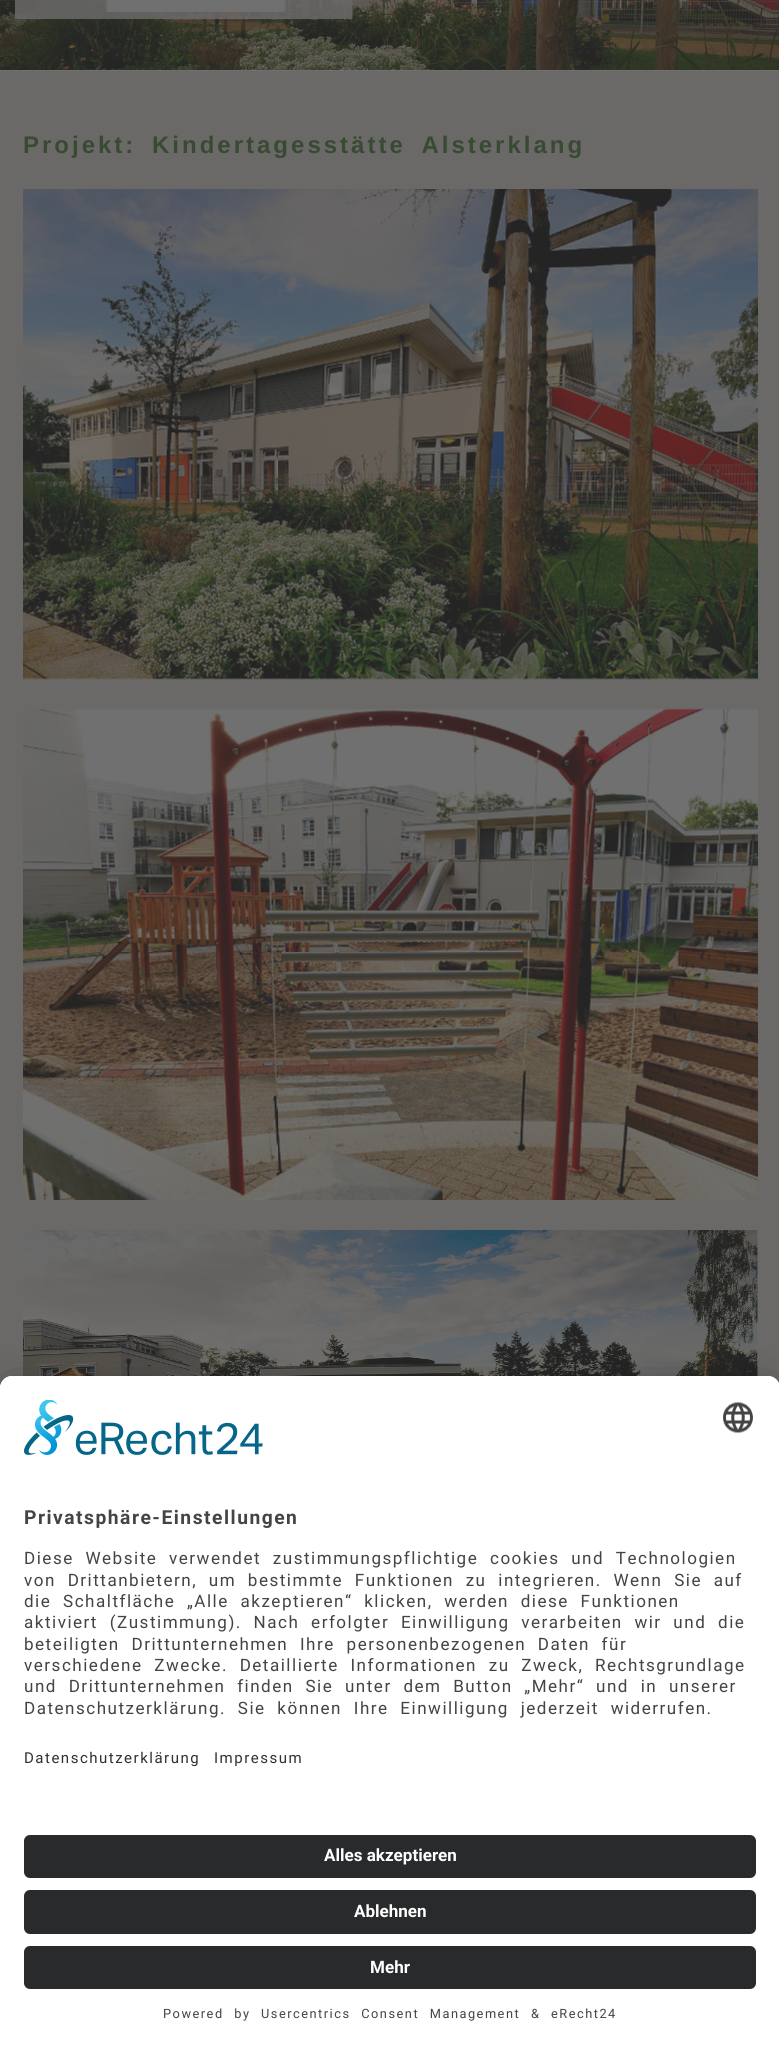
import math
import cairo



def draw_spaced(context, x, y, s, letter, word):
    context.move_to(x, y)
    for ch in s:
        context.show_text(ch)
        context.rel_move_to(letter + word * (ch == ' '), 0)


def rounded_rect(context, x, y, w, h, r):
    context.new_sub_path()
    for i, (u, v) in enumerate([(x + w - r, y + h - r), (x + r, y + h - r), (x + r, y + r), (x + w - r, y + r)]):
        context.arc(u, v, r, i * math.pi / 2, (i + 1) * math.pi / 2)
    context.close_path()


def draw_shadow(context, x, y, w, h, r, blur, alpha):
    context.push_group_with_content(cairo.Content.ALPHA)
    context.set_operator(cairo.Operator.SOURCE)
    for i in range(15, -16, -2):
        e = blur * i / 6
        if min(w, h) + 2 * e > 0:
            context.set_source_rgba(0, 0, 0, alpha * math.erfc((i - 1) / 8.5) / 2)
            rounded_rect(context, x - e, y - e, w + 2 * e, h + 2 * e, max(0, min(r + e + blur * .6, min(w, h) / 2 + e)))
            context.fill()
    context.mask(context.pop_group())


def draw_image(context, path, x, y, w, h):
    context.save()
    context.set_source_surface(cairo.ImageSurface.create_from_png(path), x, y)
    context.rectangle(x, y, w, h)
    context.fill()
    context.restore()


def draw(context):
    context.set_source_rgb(112 / 255, 112 / 255, 112 / 255)
    context.paint()
    draw_image(context, "images/1.png", 0, 0, 779, 70)
    draw_image(context, "images/2.png", 15, 0, 338, 19)
    context.set_source_rgb(106 / 255, 105 / 255, 104 / 255)
    context.rectangle(0, 71, 779, 1317)
    context.fill()
    draw_image(context, "images/3.png", 23, 189, 735, 491)
    draw_image(context, "images/4.png", 23, 708, 735, 492)
    draw_image(context, "images/5.png", 23, 1230, 735, 146)
    context.set_source_rgb(0, 0, 0)
    draw_shadow(context, 0, 1406, 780, 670, 12, 21, 0.3)
    draw_shadow(context, 0, 1383, 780, 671, 12, 19.5, 0.22)
    context.set_source_rgb(1, 1, 1)
    context.new_path()
    context.move_to(12, 1376)
    context.line_to(768, 1376)
    context.curve_to(774.5, 1376, 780, 1381.5, 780, 1388)
    context.line_to(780, 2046)
    context.line_to(0, 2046)
    context.line_to(0, 1388)
    context.curve_to(0, 1381.5, 5.5, 1376, 12, 1376)
    context.close_path()
    context.fill()
    context.new_path()
    context.move_to(12, 1376)
    context.line_to(768, 1376)
    context.curve_to(774.5, 1376, 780, 1381.5, 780, 1388)
    context.line_to(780, 1817)
    context.line_to(0, 1817)
    context.line_to(0, 1388)
    context.curve_to(0, 1381.5, 5.5, 1376, 12, 1376)
    context.close_path()
    context.fill()
    draw_image(context, "images/6.png", 24, 1400, 239, 55)
    draw_image(context, "images/7.png", 723, 1402, 30, 31)
    context.set_source_rgb(41 / 255, 42 / 255, 43 / 255)
    rounded_rect(context, 24, 1835, 732, 43, 6)
    context.fill()
    rounded_rect(context, 24, 1890, 732, 44, 6)
    context.fill()
    rounded_rect(context, 24, 1946, 732, 43, 6)
    context.fill()
    context.select_font_face("Liberation Sans", cairo.FontSlant.NORMAL, cairo.FontWeight.BOLD)
    context.set_font_size(24)
    context.set_source_rgb(56 / 255, 74 / 255, 50 / 255)
    draw_spaced(context, 23, 153, "Projekt: Kindertagesstätte Alsterklang", 3, 6)
    context.select_font_face("Roboto", cairo.FontSlant.NORMAL, cairo.FontWeight.BOLD)
    context.set_font_size(19.25)
    context.set_source_rgb(68 / 255, 68 / 255, 68 / 255)
    draw_spaced(context, 24, 1524, "Privatsphäre-Einstellungen", 1.5, 0)
    context.select_font_face("Roboto")
    context.set_font_size(17.05)
    draw_spaced(context, 24, 1564, "Diese Website verwendet zustimmungspflichtige cookies und Technologien", 1.5, 6)
    draw_spaced(context, 24, 1586, "von Drittanbietern, um bestimmte Funktionen zu integrieren. Wenn Sie auf", 1.5, 6)
    draw_spaced(context, 24, 1607, "die Schaltfläche „Alle akzeptieren“ klicken, werden diese Funktionen", 1.5, 6)
    draw_spaced(context, 24, 1628, "aktiviert (Zustimmung). Nach erfolgter Einwilligung verarbeiten wir und die", 1.5, 6)
    draw_spaced(context, 24, 1650, "beteiligten Drittunternehmen Ihre personenbezogenen Daten für", 1.5, 6)
    draw_spaced(context, 24, 1671, "verschiedene Zwecke. Detaillierte Informationen zu Zweck, Rechtsgrundlage", 1.5, 6)
    draw_spaced(context, 24, 1692, "und Drittunternehmen finden Sie unter dem Button „Mehr“ und in unserer", 1.5, 6)
    draw_spaced(context, 24, 1714, "Datenschutzerklärung. Sie können Ihre Einwilligung jederzeit widerrufen.", 1.5, 6)
    context.set_font_size(15)
    context.set_source_rgb(48 / 255, 48 / 255, 48 / 255)
    draw_spaced(context, 24, 1763, "Datenschutzerklärung", 1.5, 0)
    draw_spaced(context, 214, 1763, "Impressum", 1.5, 0)
    context.select_font_face("Roboto", cairo.FontSlant.NORMAL, cairo.FontWeight.BOLD)
    context.set_font_size(17.05)
    context.set_source_rgb(1, 1, 1)
    context.move_to(324, 1861)
    context.show_text("Alles akzeptieren")
    context.move_to(354, 1917)
    context.show_text("Ablehnen")
    context.move_to(370, 1973)
    context.show_text("Mehr")
    context.select_font_face("Roboto")
    context.set_font_size(12.8)
    context.set_source_rgb(68 / 255, 68 / 255, 68 / 255)
    draw_spaced(context, 163, 2018, "Powered by", 1.5, 6)
    draw_spaced(context, 261, 2018, "Usercentrics Consent Management", 1.5, 6)
    draw_spaced(context, 531, 2018, "&", 1.5, 0)
    draw_spaced(context, 551, 2018, "eRecht24", 1.5, 0)


surface = cairo.ImageSurface(cairo.Format.RGB24, 779, 2045)
context = cairo.Context(surface)
options = cairo.FontOptions()
options.set_hint_metrics(cairo.HintMetrics.OFF)
options.set_hint_style(cairo.HintStyle.NONE)
context.set_font_options(options)
context.set_miter_limit(4)
draw(context)
surface.write_to_png("out.png")
